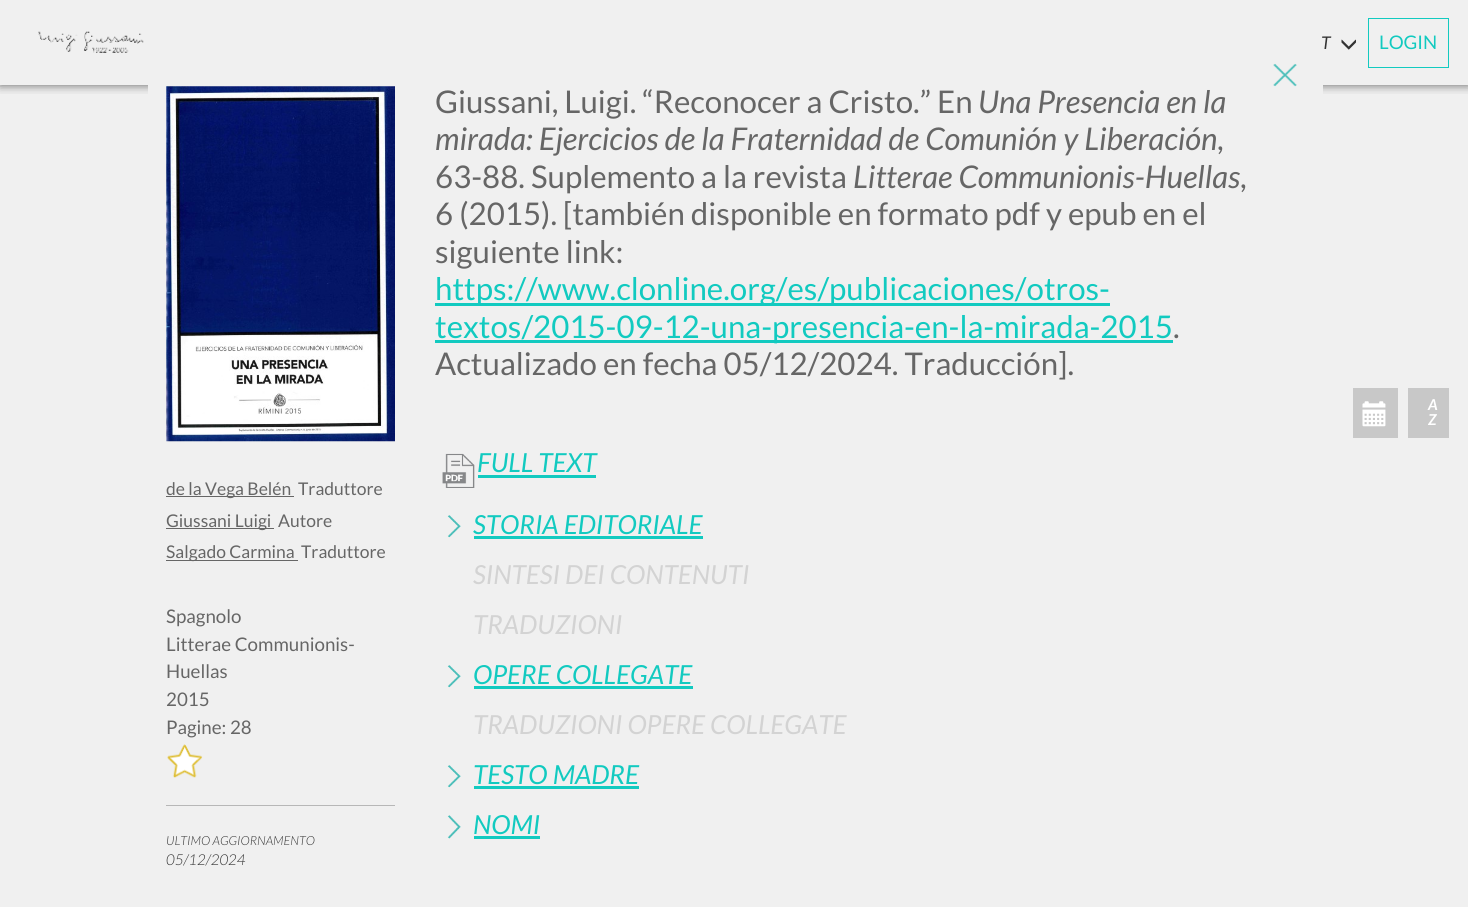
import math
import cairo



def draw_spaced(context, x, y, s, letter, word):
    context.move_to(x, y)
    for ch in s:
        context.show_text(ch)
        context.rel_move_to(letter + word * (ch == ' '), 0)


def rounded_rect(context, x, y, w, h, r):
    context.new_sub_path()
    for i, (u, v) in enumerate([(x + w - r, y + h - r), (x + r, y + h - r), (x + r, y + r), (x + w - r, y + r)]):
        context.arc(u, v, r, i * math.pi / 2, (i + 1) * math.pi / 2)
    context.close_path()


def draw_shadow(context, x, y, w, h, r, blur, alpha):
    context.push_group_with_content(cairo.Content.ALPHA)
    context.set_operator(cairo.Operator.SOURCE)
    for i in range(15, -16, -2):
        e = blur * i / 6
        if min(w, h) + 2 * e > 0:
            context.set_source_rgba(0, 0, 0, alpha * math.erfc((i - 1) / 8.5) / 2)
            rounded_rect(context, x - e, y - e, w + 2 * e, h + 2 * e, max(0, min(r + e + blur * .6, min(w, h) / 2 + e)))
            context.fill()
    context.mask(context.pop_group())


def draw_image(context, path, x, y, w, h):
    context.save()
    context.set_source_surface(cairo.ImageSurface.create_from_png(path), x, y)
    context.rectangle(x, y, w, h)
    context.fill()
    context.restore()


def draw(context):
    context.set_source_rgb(240 / 255, 240 / 255, 240 / 255)
    context.paint()
    context.save()
    context.rectangle(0, 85, 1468, 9)
    context.clip()
    context.set_source_rgb(0, 0, 0)
    draw_shadow(context, 0, 0, 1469, 85, 0, 5, 0.6)
    context.restore()
    context.set_source_rgb(240 / 255, 240 / 255, 240 / 255)
    context.rectangle(148, 85, 1175, 10)
    context.fill()
    draw_image(context, "images/1.png", 1273, 63, 24, 24)
    draw_image(context, "images/2.png", 166, 86, 229, 356)
    context.set_source_rgb(102 / 255, 102 / 255, 102 / 255)
    context.rectangle(166, 496, 128, 1)
    context.fill()
    context.rectangle(166, 528, 108, 1)
    context.fill()
    context.rectangle(166, 560, 132, 1)
    context.fill()
    draw_image(context, "images/3.png", 167, 744, 36, 34)
    context.set_source_rgb(183 / 255, 183 / 255, 183 / 255)
    context.rectangle(166, 805, 229, 1)
    context.fill()
    context.set_source_rgb(18 / 255, 202 / 255, 192 / 255)
    context.rectangle(435, 303, 675, 3)
    context.fill()
    context.rectangle(435, 340, 738, 3)
    context.fill()
    draw_image(context, "images/4.png", 442, 453, 33, 35)
    context.rectangle(478, 475, 118, 3)
    context.fill()
    draw_image(context, "images/5.png", 447, 515, 14, 23)
    context.rectangle(474, 536, 229, 3)
    context.fill()
    draw_image(context, "images/5.png", 447, 665, 14, 23)
    context.rectangle(474, 686, 219, 3)
    context.fill()
    draw_image(context, "images/5.png", 447, 765, 14, 23)
    context.rectangle(474, 786, 165, 3)
    context.fill()
    draw_image(context, "images/6.png", 447, 815, 14, 24)
    context.rectangle(474, 836, 66, 3)
    context.fill()
    draw_image(context, "images/7.png", 38, 31, 106, 22)
    draw_image(context, "images/8.png", 1341, 39, 15, 11)
    context.rectangle(1368.5, 18.5, 80, 49)
    context.set_line_width(1)
    context.stroke()
    context.set_source_rgb(200 / 255, 200 / 255, 200 / 255)
    context.rectangle(1353, 388, 45, 50)
    context.fill()
    draw_image(context, "images/9.png", 1362, 401, 24, 26)
    context.rectangle(1408, 388, 41, 50)
    context.fill()
    context.select_font_face("Lato")
    context.set_font_size(17.5)
    context.set_source_rgb(102 / 255, 102 / 255, 102 / 255)
    context.move_to(166, 495)
    context.show_text("de la Vega Belén")
    context.move_to(298, 495)
    context.show_text("Traduttore")
    context.move_to(166, 527)
    context.show_text("Giussani Luigi")
    context.move_to(278, 527)
    context.show_text("Autore")
    context.move_to(166, 558)
    context.show_text("Salgado Carmina")
    context.move_to(301, 558)
    context.show_text("Traduttore")
    context.set_font_size(18.75)
    context.move_to(166, 623)
    context.show_text("Spagnolo")
    context.move_to(166, 651)
    context.show_text("Litterae Communionis-")
    context.move_to(166, 678)
    context.show_text("Huellas")
    context.move_to(166, 706)
    context.show_text("2015")
    context.move_to(166, 734)
    context.show_text("Pagine: 28")
    context.select_font_face("Lato Light", cairo.FontSlant.ITALIC)
    context.set_font_size(12.5)
    context.set_source_rgb(51 / 255, 51 / 255, 51 / 255)
    context.move_to(166, 845)
    context.show_text("ULTIMO AGGIORNAMENTO")
    context.set_font_size(15)
    context.move_to(166, 865)
    context.show_text("05/12/2024")
    context.select_font_face("Lato")
    context.set_font_size(31.25)
    context.set_source_rgb(102 / 255, 102 / 255, 102 / 255)
    context.move_to(435, 113)
    context.show_text("Giussani, Luigi. “Reconocer a Cristo.” En")
    context.select_font_face("Lato", cairo.FontSlant.ITALIC)
    context.move_to(978, 113)
    context.show_text("Una Presencia en la")
    context.move_to(435, 150)
    context.show_text("mirada: Ejercicios de la Fraternidad de Comunión y Liberación")
    context.select_font_face("Lato")
    context.move_to(1217, 150)
    context.show_text(",")
    context.move_to(435, 188)
    context.show_text("63-88. Suplemento a la revista")
    context.select_font_face("Lato", cairo.FontSlant.ITALIC)
    context.move_to(853, 188)
    context.show_text("Litterae Communionis-Huellas")
    context.select_font_face("Lato")
    context.move_to(1240, 188)
    context.show_text(",")
    context.move_to(435, 225)
    context.show_text("6 (2015). [también disponible en formato pdf y epub en el")
    context.move_to(435, 263)
    context.show_text("siguiente link:")
    context.set_source_rgb(18 / 255, 202 / 255, 192 / 255)
    context.move_to(435, 300)
    context.show_text("https://www.clonline.org/es/publicaciones/otros-")
    context.move_to(435, 338)
    context.show_text("textos/2015-09-12-una-presencia-en-la-mirada-2015")
    context.set_source_rgb(102 / 255, 102 / 255, 102 / 255)
    context.move_to(1173, 338)
    context.show_text(".")
    context.move_to(435, 375)
    context.show_text("Actualizado en fecha 05/12/2024. Traducción].")
    context.select_font_face("Lato", cairo.FontSlant.ITALIC)
    context.set_font_size(26.25)
    context.set_source_rgb(18 / 255, 202 / 255, 192 / 255)
    context.move_to(477, 472)
    context.show_text("FULL TEXT")
    context.move_to(473, 534)
    context.show_text("STORIA EDITORIALE")
    context.set_source_rgb(211 / 255, 211 / 255, 211 / 255)
    context.move_to(473, 584)
    context.show_text("SINTESI DEI CONTENUTI")
    context.move_to(473, 634)
    context.show_text("TRADUZIONI")
    context.set_source_rgb(18 / 255, 202 / 255, 192 / 255)
    context.move_to(473, 684)
    context.show_text("OPERE COLLEGATE")
    context.set_source_rgb(211 / 255, 211 / 255, 211 / 255)
    context.move_to(473, 734)
    context.show_text("TRADUZIONI OPERE COLLEGATE")
    context.set_source_rgb(18 / 255, 202 / 255, 192 / 255)
    context.move_to(473, 784)
    context.show_text("TESTO MADRE")
    context.move_to(473, 834)
    context.show_text("NOMI")
    context.set_font_size(17.5)
    context.set_source_rgb(51 / 255, 51 / 255, 51 / 255)
    context.move_to(1321, 49)
    context.show_text("T")
    context.select_font_face("Lato")
    context.set_font_size(18.75)
    context.set_source_rgb(18 / 255, 202 / 255, 192 / 255)
    context.move_to(1379, 49)
    context.show_text("LOGIN")
    context.select_font_face("Lato", cairo.FontSlant.ITALIC, cairo.FontWeight.BOLD)
    context.set_font_size(15)
    context.set_source_rgb(1, 1, 1)
    draw_spaced(context, 1428, 410, "A", 1, 0)
    draw_spaced(context, 1428, 425, "Z", 1, 0)


surface = cairo.ImageSurface(cairo.Format.RGB24, 1468, 907)
context = cairo.Context(surface)
options = cairo.FontOptions()
options.set_hint_metrics(cairo.HintMetrics.OFF)
options.set_hint_style(cairo.HintStyle.NONE)
context.set_font_options(options)
context.set_miter_limit(4)
draw(context)
surface.write_to_png("out.png")
